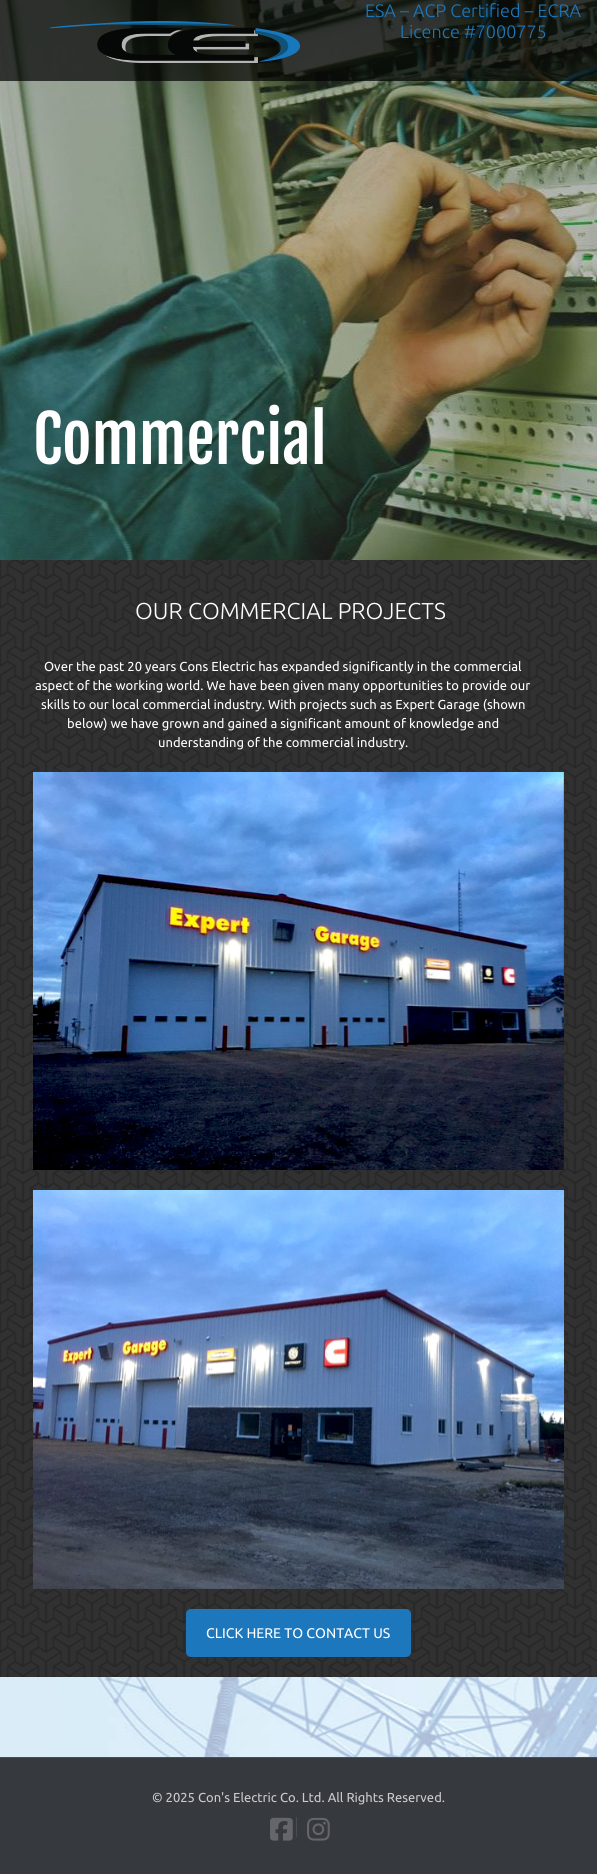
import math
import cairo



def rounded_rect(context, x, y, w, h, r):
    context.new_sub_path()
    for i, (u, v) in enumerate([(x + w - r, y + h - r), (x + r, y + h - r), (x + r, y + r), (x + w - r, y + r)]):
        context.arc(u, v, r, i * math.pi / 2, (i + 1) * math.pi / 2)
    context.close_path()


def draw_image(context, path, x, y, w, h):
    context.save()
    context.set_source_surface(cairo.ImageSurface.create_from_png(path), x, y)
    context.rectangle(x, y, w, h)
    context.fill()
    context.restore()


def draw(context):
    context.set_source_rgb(1, 1, 1)
    context.paint()
    draw_image(context, "images/1.png", 0, 0, 597, 560)
    context.set_source_rgba(0, 0, 0, 0.7)
    context.rectangle(0, 0, 597, 81)
    context.fill()
    draw_image(context, "images/2.png", 50, 21, 250, 42)
    draw_image(context, "images/3.png", 0, 560, 597, 1117)
    draw_image(context, "images/4.png", 33, 772, 531, 398)
    draw_image(context, "images/5.png", 33, 1190, 531, 399)
    context.set_source_rgb(28 / 255, 119 / 255, 189 / 255)
    rounded_rect(context, 186, 1609, 225, 48, 5)
    context.fill()
    draw_image(context, "images/6.png", 0, 1677, 597, 80)
    context.set_source_rgb(54 / 255, 57 / 255, 62 / 255)
    context.rectangle(0, 1758, 597, 116)
    context.fill()
    context.set_source_rgb(74 / 255, 77 / 255, 81 / 255)
    context.rectangle(0, 1757, 597, 1)
    context.fill()
    context.rectangle(296, 1817, 1, 20)
    context.fill()
    draw_image(context, "images/7.png", 270, 1817, 23, 24)
    draw_image(context, "images/8.png", 307, 1817, 23, 24)
    context.select_font_face("Ubuntu Light")
    context.set_font_size(18)
    context.set_source_rgb(28 / 255, 119 / 255, 189 / 255)
    context.move_to(365, 17)
    context.show_text("ESA – ACP Certified – ECRA")
    context.move_to(400, 38)
    context.show_text("Licence #7000775")
    context.select_font_face("Fjalla One")
    context.set_font_size(64)
    context.set_source_rgb(1, 1, 1)
    context.move_to(33, 464)
    context.show_text("Commercial")
    context.select_font_face("Ubuntu Light")
    context.set_font_size(23)
    context.move_to(135, 619)
    context.show_text("OUR COMMERCIAL PROJECTS")
    context.select_font_face("Ubuntu")
    context.set_font_size(13)
    context.move_to(44, 671)
    context.show_text("Over the past 20 years Cons Electric has expanded significantly in the commercial")
    context.move_to(35, 690)
    context.show_text("aspect of the working world. We have been given many opportunities to provide our")
    context.move_to(41, 709)
    context.show_text("skills to our local commercial industry. With projects such as Expert Garage (shown")
    context.move_to(67, 728)
    context.show_text("below) we have grown and gained a significant amount of knowledge and")
    context.move_to(158, 747)
    context.show_text("understanding of the commercial industry.")
    context.set_font_size(14)
    context.move_to(206, 1638)
    context.show_text("CLICK HERE TO CONTACT US")
    context.set_font_size(13)
    context.set_source_rgb(204 / 255, 204 / 255, 204 / 255)
    context.move_to(152, 1802)
    context.show_text("© 2025 Con's Electric Co. Ltd. All Rights Reserved.")


surface = cairo.ImageSurface(cairo.Format.RGB24, 597, 1874)
context = cairo.Context(surface)
options = cairo.FontOptions()
options.set_hint_metrics(cairo.HintMetrics.OFF)
options.set_hint_style(cairo.HintStyle.NONE)
context.set_font_options(options)
context.set_miter_limit(4)
draw(context)
surface.write_to_png("out.png")
